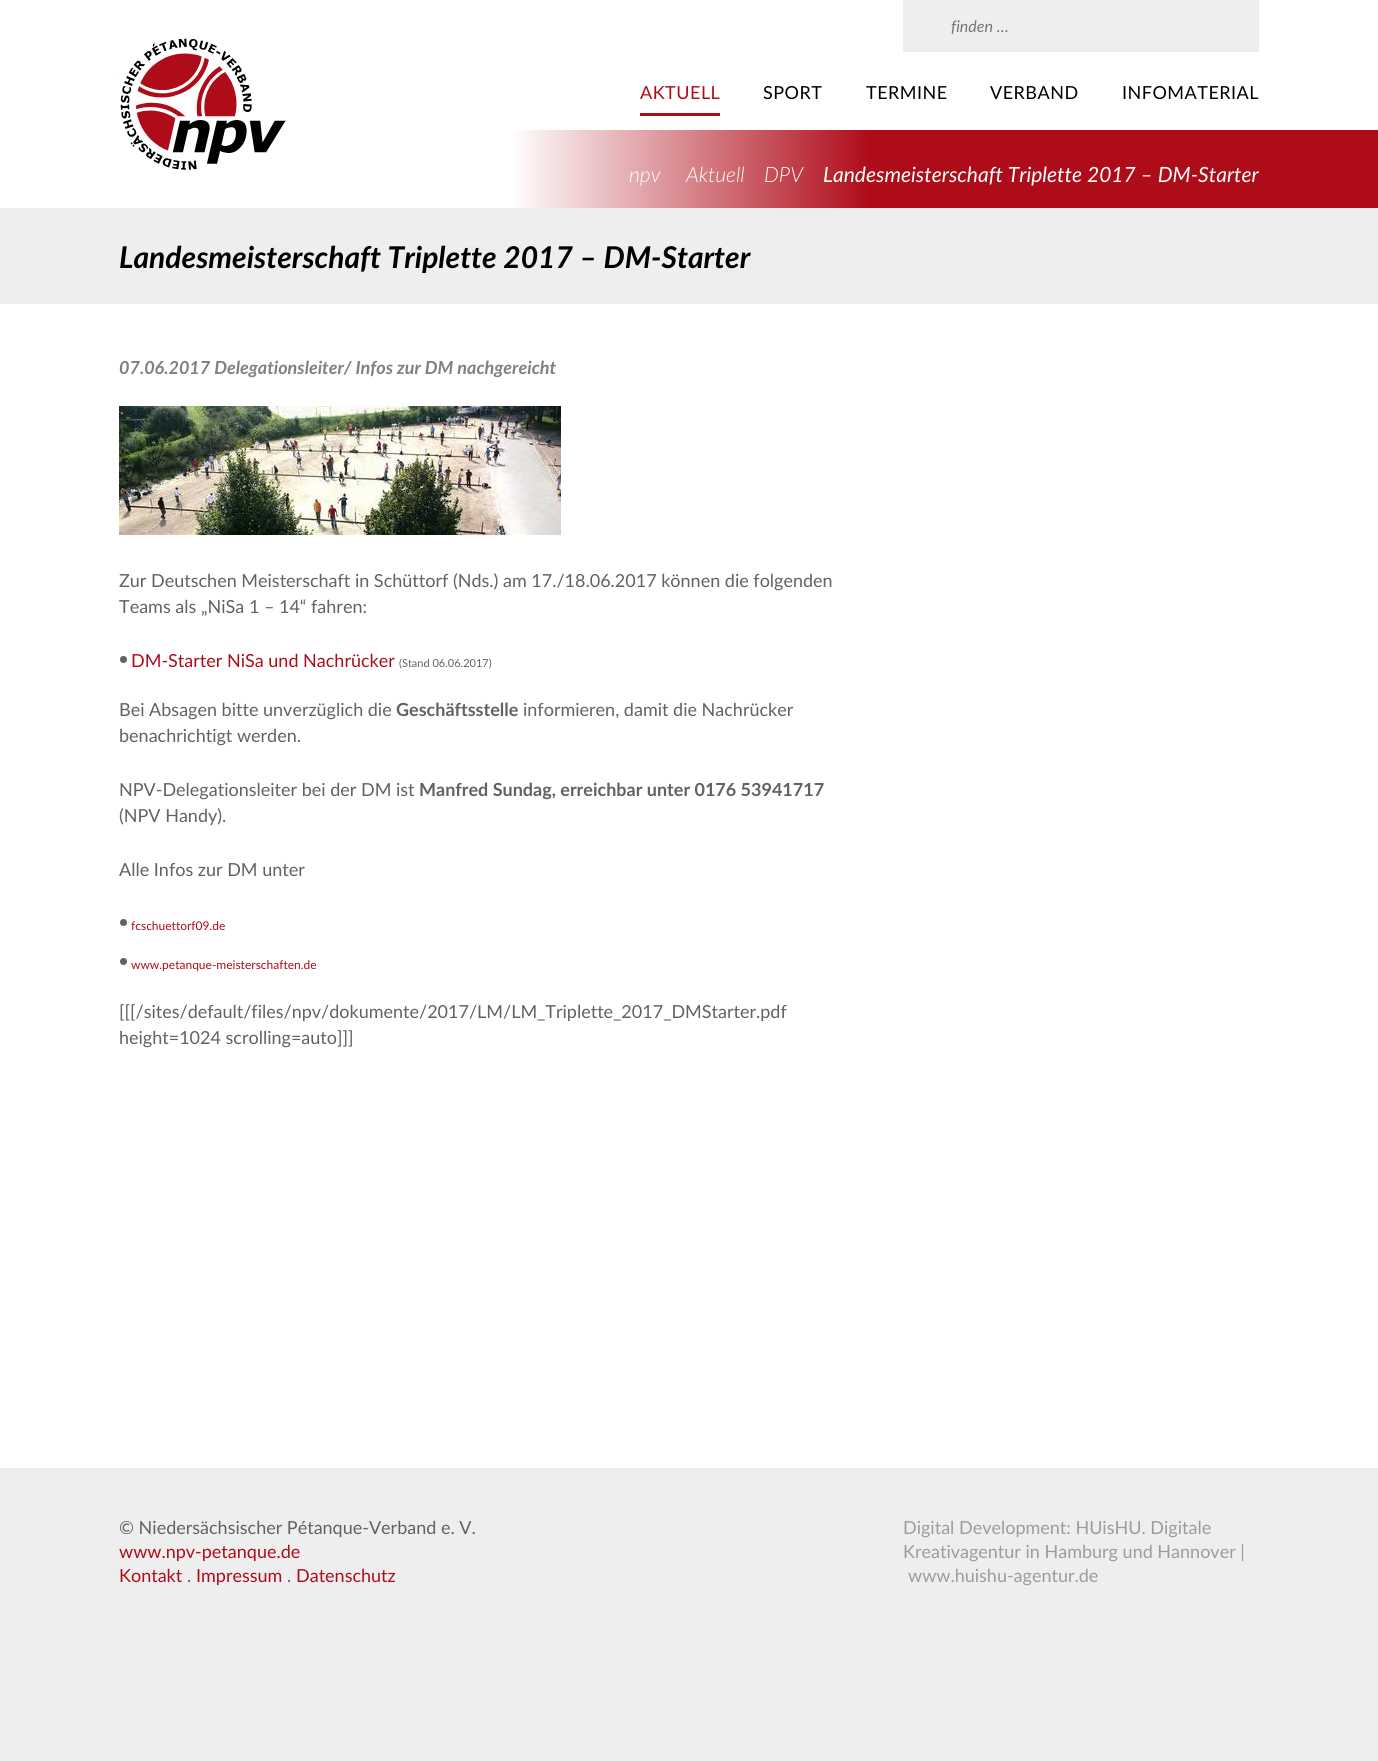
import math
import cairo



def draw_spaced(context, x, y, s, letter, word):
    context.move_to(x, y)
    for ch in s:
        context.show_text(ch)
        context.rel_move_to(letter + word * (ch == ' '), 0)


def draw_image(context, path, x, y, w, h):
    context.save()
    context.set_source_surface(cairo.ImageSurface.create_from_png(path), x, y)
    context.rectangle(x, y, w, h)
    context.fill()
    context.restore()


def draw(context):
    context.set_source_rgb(1, 1, 1)
    context.paint()
    context.set_source_rgb(238 / 255, 238 / 255, 238 / 255)
    context.rectangle(903, 0, 356, 52)
    context.fill()
    draw_image(context, "images/1.png", 119, 76, 2, 2)
    gradient = cairo.LinearGradient(205, 33, 205, 175)
    gradient.add_color_stop_rgba(0.3, 1, 1, 1, 1)
    gradient.add_color_stop_rgba(0.6, 1, 1, 1, 0)
    context.set_source(gradient)
    context.rectangle(119, 76, 2, 2)
    context.fill()
    draw_image(context, "images/2.png", 120, 38, 166, 132)
    context.set_source_rgb(175 / 255, 12 / 255, 26 / 255)
    context.rectangle(640, 113, 80, 3)
    context.fill()
    gradient = cairo.LinearGradient(1378, 169, 0, 169)
    gradient.add_color_stop_rgba(0.37, 175 / 255, 12 / 255, 26 / 255, 1)
    gradient.add_color_stop_rgba(0.63, 1, 1, 1, 1)
    context.set_source(gradient)
    context.rectangle(514, 130, 864, 78)
    context.fill()
    context.set_source_rgb(238 / 255, 238 / 255, 238 / 255)
    context.rectangle(0, 208, 1378, 96)
    context.fill()
    draw_image(context, "images/3.png", 119, 406, 442, 129)
    context.set_source_rgb(98 / 255, 98 / 255, 98 / 255)
    context.arc(123.5, 659.5, 3.5, 0, 2 * math.pi)
    context.fill()
    context.arc(123.5, 922.5, 3.5, 0, 2 * math.pi)
    context.fill()
    context.arc(123.5, 961.5, 3.5, 0, 2 * math.pi)
    context.fill()
    context.set_source_rgb(238 / 255, 238 / 255, 238 / 255)
    context.rectangle(0, 1468, 1378, 293)
    context.fill()
    context.select_font_face("Lato", cairo.FontSlant.ITALIC)
    context.set_font_size(16)
    context.set_source_rgb(117 / 255, 117 / 255, 117 / 255)
    context.move_to(951, 32)
    context.show_text("finden …")
    context.select_font_face("Lato")
    context.set_font_size(18)
    context.set_source_rgb(175 / 255, 12 / 255, 26 / 255)
    draw_spaced(context, 640, 99, "AKTUELL", 0.5, 0)
    context.set_source_rgb(0, 0, 0)
    draw_spaced(context, 763, 99, "SPORT", 0.5, 0)
    draw_spaced(context, 866, 99, "TERMINE", 0.5, 0)
    draw_spaced(context, 990, 99, "VERBAND", 0.5, 0)
    draw_spaced(context, 1122, 99, "INFOMATERIAL", 0.5, 0)
    context.select_font_face("Lato Light", cairo.FontSlant.ITALIC)
    context.set_font_size(21)
    context.set_source_rgb(1, 1, 1)
    context.move_to(629, 182)
    context.show_text("npv")
    context.move_to(686, 182)
    context.show_text("Aktuell")
    context.move_to(764, 182)
    context.show_text("DPV")
    context.select_font_face("Lato", cairo.FontSlant.ITALIC)
    context.move_to(823, 182)
    context.show_text("Landesmeisterschaft Triplette 2017 – DM-Starter")
    context.select_font_face("Lato", cairo.FontSlant.ITALIC, cairo.FontWeight.BOLD)
    context.set_font_size(30)
    context.set_source_rgb(0, 0, 0)
    context.move_to(119, 268)
    context.show_text("Landesmeisterschaft Triplette 2017 – DM-Starter")
    context.set_font_size(18)
    context.set_source_rgb(128 / 255, 128 / 255, 128 / 255)
    context.move_to(119, 374)
    context.show_text("07.06.2017 Delegationsleiter/ Infos zur DM nachgereicht")
    context.select_font_face("Lato")
    context.set_source_rgb(98 / 255, 98 / 255, 98 / 255)
    context.move_to(119, 587)
    context.show_text("Zur Deutschen Meisterschaft in Schüttorf (Nds.) am 17./18.06.2017 können die folgenden")
    context.move_to(119, 613)
    context.show_text("Teams als „NiSa 1 – 14“ fahren:")
    context.set_source_rgb(175 / 255, 12 / 255, 26 / 255)
    context.move_to(131, 667)
    context.show_text("DM-Starter NiSa und Nachrücker")
    context.set_font_size(11)
    context.set_source_rgb(98 / 255, 98 / 255, 98 / 255)
    context.move_to(399, 667)
    context.show_text("(Stand 06.06.2017)")
    context.set_font_size(18)
    context.move_to(119, 716)
    context.show_text("Bei Absagen bitte unverzüglich die")
    context.select_font_face("Lato", cairo.FontSlant.NORMAL, cairo.FontWeight.BOLD)
    context.move_to(396, 716)
    context.show_text("Geschäftsstelle")
    context.select_font_face("Lato")
    context.move_to(523, 716)
    context.show_text("informieren, damit die Nachrücker")
    context.move_to(119, 742)
    context.show_text("benachrichtigt werden.")
    context.move_to(119, 796)
    context.show_text("NPV-Delegationsleiter bei der DM ist")
    context.select_font_face("Lato", cairo.FontSlant.NORMAL, cairo.FontWeight.BOLD)
    context.move_to(419, 796)
    context.show_text("Manfred Sundag, erreichbar unter 0176 53941717")
    context.select_font_face("Lato")
    context.move_to(119, 822)
    context.show_text("(NPV Handy).")
    context.move_to(119, 876)
    context.show_text("Alle Infos zur DM unter")
    context.set_font_size(12)
    context.set_source_rgb(175 / 255, 12 / 255, 26 / 255)
    context.move_to(131, 930)
    context.show_text("fcschuettorf09.de")
    context.move_to(131, 969)
    context.show_text("www.petanque-meisterschaften.de")
    context.set_font_size(18)
    context.set_source_rgb(98 / 255, 98 / 255, 98 / 255)
    context.move_to(119, 1018)
    context.show_text("[[[/sites/default/files/npv/dokumente/2017/LM/LM_Triplette_2017_DMStarter.pdf")
    context.move_to(119, 1044)
    context.show_text("height=1024 scrolling=auto]]]")
    context.move_to(119, 1534)
    context.show_text("© Niedersächsischer Pétanque-Verband e. V.")
    context.set_source_rgb(175 / 255, 12 / 255, 26 / 255)
    context.move_to(119, 1558)
    context.show_text("www.npv-petanque.de")
    context.move_to(119, 1582)
    context.show_text("Kontakt")
    context.set_source_rgb(98 / 255, 98 / 255, 98 / 255)
    context.move_to(187, 1582)
    context.show_text(".")
    context.set_source_rgb(175 / 255, 12 / 255, 26 / 255)
    context.move_to(196, 1582)
    context.show_text("Impressum")
    context.set_source_rgb(98 / 255, 98 / 255, 98 / 255)
    context.move_to(287, 1582)
    context.show_text(".")
    context.set_source_rgb(175 / 255, 12 / 255, 26 / 255)
    context.move_to(296, 1582)
    context.show_text("Datenschutz")
    context.set_source_rgb(156 / 255, 156 / 255, 156 / 255)
    context.move_to(903, 1534)
    context.show_text("Digital Development: HUisHU. Digitale")
    context.move_to(903, 1558)
    context.show_text("Kreativagentur in Hamburg und Hannover |")
    context.move_to(908, 1582)
    context.show_text("www.huishu-agentur.de")


surface = cairo.ImageSurface(cairo.Format.RGB24, 1378, 1761)
context = cairo.Context(surface)
options = cairo.FontOptions()
options.set_hint_metrics(cairo.HintMetrics.OFF)
options.set_hint_style(cairo.HintStyle.NONE)
context.set_font_options(options)
context.set_miter_limit(4)
draw(context)
surface.write_to_png("out.png")
